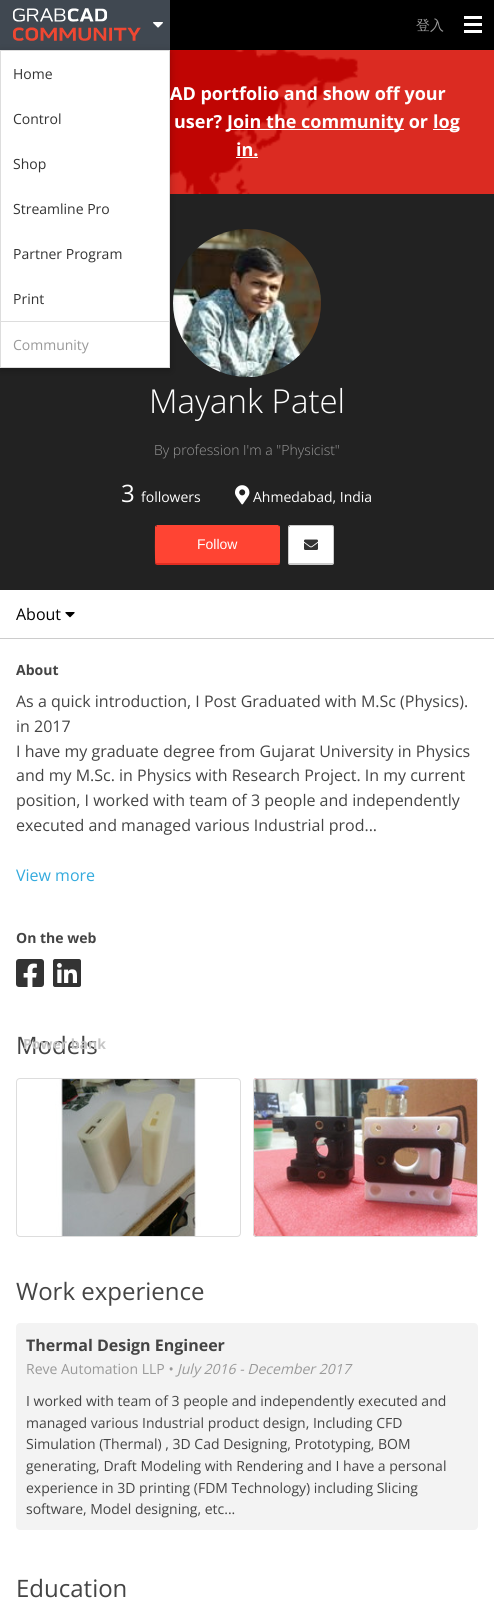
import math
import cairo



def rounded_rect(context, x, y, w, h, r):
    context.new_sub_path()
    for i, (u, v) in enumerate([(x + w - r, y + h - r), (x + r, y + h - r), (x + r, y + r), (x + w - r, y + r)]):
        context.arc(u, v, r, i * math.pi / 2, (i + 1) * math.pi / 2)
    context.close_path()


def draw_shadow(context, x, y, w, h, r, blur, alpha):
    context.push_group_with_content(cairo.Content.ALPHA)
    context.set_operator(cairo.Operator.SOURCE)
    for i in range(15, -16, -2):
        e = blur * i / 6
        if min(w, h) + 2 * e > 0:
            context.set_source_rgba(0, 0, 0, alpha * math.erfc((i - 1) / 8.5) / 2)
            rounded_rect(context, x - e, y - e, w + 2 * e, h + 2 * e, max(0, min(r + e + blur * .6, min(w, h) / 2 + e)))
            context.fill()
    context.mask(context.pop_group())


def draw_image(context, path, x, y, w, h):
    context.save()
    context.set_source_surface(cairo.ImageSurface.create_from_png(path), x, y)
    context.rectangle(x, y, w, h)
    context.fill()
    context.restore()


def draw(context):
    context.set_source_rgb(1, 1, 1)
    context.paint()
    context.set_source_rgb(0, 0, 0)
    context.rectangle(170, 0, 324, 50)
    context.fill()
    context.set_source_rgb(1, 1, 1)
    context.rectangle(464, 23, 18, 3)
    context.fill()
    context.rectangle(464, 16, 18, 3)
    context.fill()
    context.rectangle(464, 30, 18, 3)
    context.fill()
    context.set_source_rgb(64 / 255, 72 / 255, 81 / 255)
    context.rectangle(0, 0, 170, 50)
    context.fill()
    draw_image(context, "images/1.png", 13, 8, 128, 33)
    draw_image(context, "images/2.png", 153, 22, 10, 6)
    context.set_source_rgb(219 / 255, 43 / 255, 34 / 255)
    context.rectangle(170, 50, 324, 144)
    context.fill()
    draw_image(context, "images/3.png", 170, 50, 189, 144)
    context.set_source_rgb(34 / 255, 34 / 255, 34 / 255)
    context.rectangle(0, 194, 494, 396)
    context.fill()
    draw_image(context, "images/4.png", 173, 229, 148, 148)
    context.set_source_rgb(0, 0, 0)
    draw_shadow(context, 0, 52, 170, 318, 0, 4, 0.25)
    context.set_source_rgb(1, 1, 1)
    context.rectangle(0.5, 50.5, 169, 317)
    context.fill_preserve()
    context.set_source_rgb(221 / 255, 221 / 255, 221 / 255)
    context.set_line_width(1)
    context.stroke()
    context.rectangle(1, 321, 168, 1)
    context.fill()
    context.set_source_rgb(1, 1, 1)
    context.rectangle(227, 129, 177, 1)
    context.fill()
    context.rectangle(433, 129, 26, 1)
    context.fill()
    context.rectangle(236, 157, 22, 1)
    context.fill()
    draw_image(context, "images/5.png", 235, 485, 15, 20)
    context.set_source_rgb(1, 68 / 255, 51 / 255)
    context.new_path()
    context.move_to(157, 526)
    context.line_to(278, 526)
    context.curve_to(279, 526, 279, 526, 279, 527)
    context.line_to(279, 563)
    context.line_to(156, 563)
    context.line_to(156, 527)
    context.close_path()
    context.fill()
    context.new_path()
    context.move_to(157, 525)
    context.line_to(156, 526)
    context.line_to(157, 526)
    context.line_to(279, 526)
    context.line_to(278, 525)
    context.close_path()
    context.fill()
    context.new_path()
    context.move_to(280, 563)
    context.line_to(280, 527)
    context.line_to(279.5, 525.5)
    context.line_to(279, 526)
    context.line_to(279, 551)
    context.curve_to(279, 554, 278.5, 561.5, 279.5, 564)
    context.close_path()
    context.fill()
    context.set_source_rgb(226 / 255, 46 / 255, 34 / 255)
    context.new_path()
    context.move_to(157, 565)
    context.line_to(278, 565)
    context.line_to(280, 564)
    context.line_to(279, 563)
    context.line_to(156, 563)
    context.line_to(155, 564)
    context.close_path()
    context.fill()
    context.set_source_rgb(1, 68 / 255, 51 / 255)
    context.new_path()
    context.move_to(155, 527)
    context.curve_to(155, 531.5, 154.5, 563, 155.5, 564)
    context.line_to(156, 563)
    context.line_to(156, 527)
    context.line_to(156.5, 526.5)
    context.line_to(155.5, 525.5)
    context.close_path()
    context.fill()
    context.set_source_rgb(1, 1, 1)
    context.new_path()
    context.move_to(290, 526)
    context.line_to(332, 526)
    context.curve_to(333, 526, 333, 526, 333, 527)
    context.line_to(333, 563)
    context.line_to(289, 563)
    context.line_to(289, 527)
    context.close_path()
    context.fill()
    rounded_rect(context, 288.5, 525.5, 45, 39, 1.5)
    context.set_source_rgb(204 / 255, 204 / 255, 204 / 255)
    context.stroke()
    context.rectangle(289, 563, 44, 1)
    context.fill()
    draw_image(context, "images/6.png", 304, 539, 14, 11)
    context.rectangle(0, 638, 494, 1)
    context.fill()
    draw_image(context, "images/7.png", 65, 612, 10, 6)
    draw_image(context, "images/8.png", 16, 959, 28, 28)
    draw_image(context, "images/9.png", 53, 959, 28, 28)
    draw_image(context, "images/10.png", 16, 1078, 225, 159)
    rounded_rect(context, 16.5, 1078.5, 224, 158, 3.5)
    context.set_source_rgb(221 / 255, 221 / 255, 221 / 255)
    context.stroke()
    draw_image(context, "images/11.png", 253, 1078, 225, 159)
    rounded_rect(context, 253.5, 1078.5, 224, 158, 3.5)
    context.stroke()
    context.set_source_rgb(243 / 255, 243 / 255, 243 / 255)
    rounded_rect(context, 16, 1323, 462, 207, 4)
    context.fill()
    context.select_font_face("WenQuanYi Zen Hei Medium")
    context.set_font_size(14)
    context.set_source_rgb(153 / 255, 153 / 255, 153 / 255)
    context.move_to(416, 30)
    context.show_text("登入")
    context.select_font_face("Open Sans")
    context.set_source_rgb(51 / 255, 51 / 255, 51 / 255)
    context.move_to(13, 79)
    context.show_text("Home")
    context.move_to(13, 124)
    context.show_text("Control")
    context.move_to(13, 169)
    context.show_text("Shop")
    context.move_to(13, 214)
    context.show_text("Streamline Pro")
    context.move_to(13, 259)
    context.show_text("Partner Program")
    context.move_to(13, 304)
    context.show_text("Print")
    context.set_source_rgb(153 / 255, 153 / 255, 153 / 255)
    context.move_to(13, 350)
    context.show_text("Community")
    context.select_font_face("Open Sans", cairo.FontSlant.NORMAL, cairo.FontWeight.BOLD)
    context.set_font_size(18)
    context.set_source_rgb(1, 1, 1)
    context.move_to(170, 100)
    context.show_text("AD portfolio and show off your")
    context.move_to(174, 128)
    context.show_text("user?")
    context.move_to(227, 128)
    context.show_text("Join the community or")
    context.move_to(433, 128)
    context.show_text("log")
    context.move_to(236, 156)
    context.show_text("in.")
    context.select_font_face("Open Sans Light")
    context.set_font_size(33)
    context.move_to(149, 413)
    context.show_text("Mayank Patel")
    context.set_font_size(14)
    context.set_source_rgb(153 / 255, 153 / 255, 153 / 255)
    context.move_to(154, 455)
    context.show_text("By profession I'm a \"Physicist\"")
    context.select_font_face("Open Sans")
    context.set_font_size(24)
    context.set_source_rgb(1, 1, 1)
    context.move_to(121, 502)
    context.show_text("3")
    context.set_font_size(14)
    context.move_to(141, 502)
    context.show_text("followers")
    context.move_to(253, 502)
    context.show_text("Ahmedabad, India")
    context.select_font_face("Liberation Sans")
    context.move_to(197, 549)
    context.show_text("Follow")
    context.select_font_face("Open Sans")
    context.set_font_size(16)
    context.set_source_rgb(0, 0, 0)
    context.move_to(16, 620)
    context.show_text("About")
    context.select_font_face("Open Sans", cairo.FontSlant.NORMAL, cairo.FontWeight.BOLD)
    context.set_font_size(14)
    context.set_source_rgb(68 / 255, 68 / 255, 68 / 255)
    context.move_to(16, 675)
    context.show_text("About")
    context.select_font_face("Open Sans")
    context.set_font_size(16)
    context.move_to(16, 707)
    context.show_text("As a quick introduction, I Post Graduated with M.Sc (Physics).")
    context.move_to(16, 732)
    context.show_text("in 2017")
    context.move_to(16, 757)
    context.show_text("I have my graduate degree from Gujarat University in Physics")
    context.move_to(16, 781)
    context.show_text("and my M.Sc. in Physics with Research Project. In my current")
    context.move_to(16, 806)
    context.show_text("position, I worked with team of 3 people and independently")
    context.move_to(16, 831)
    context.show_text("executed and managed various Industrial prod...")
    context.set_source_rgb(51 / 255, 170 / 255, 221 / 255)
    context.move_to(16, 881)
    context.show_text("View more")
    context.select_font_face("Open Sans", cairo.FontSlant.NORMAL, cairo.FontWeight.BOLD)
    context.set_font_size(14)
    context.set_source_rgb(68 / 255, 68 / 255, 68 / 255)
    context.move_to(16, 943)
    context.show_text("On the web")
    context.select_font_face("Open Sans")
    context.set_font_size(24)
    context.move_to(16, 1054)
    context.show_text("Models")
    context.select_font_face("Open Sans", cairo.FontSlant.NORMAL, cairo.FontWeight.BOLD)
    context.set_font_size(14)
    context.set_source_rgb(198 / 255, 198 / 255, 198 / 255)
    context.move_to(23, 1049)
    context.show_text("Power bank")
    context.select_font_face("Open Sans")
    context.set_font_size(24)
    context.set_source_rgb(68 / 255, 68 / 255, 68 / 255)
    context.move_to(16, 1300)
    context.show_text("Work experience")
    context.select_font_face("Open Sans", cairo.FontSlant.NORMAL, cairo.FontWeight.BOLD)
    context.set_font_size(16)
    context.move_to(26, 1351)
    context.show_text("Thermal Design Engineer")
    context.select_font_face("Open Sans")
    context.set_font_size(14)
    context.set_source_rgb(153 / 255, 153 / 255, 153 / 255)
    context.move_to(26, 1374)
    context.show_text("Reve Automation LLP •")
    context.select_font_face("Open Sans", cairo.FontSlant.ITALIC)
    context.move_to(177, 1374)
    context.show_text("July 2016 - December 2017")
    context.select_font_face("Open Sans")
    context.set_source_rgb(68 / 255, 68 / 255, 68 / 255)
    context.move_to(26, 1406)
    context.show_text("I worked with team of 3 people and independently executed and")
    context.move_to(26, 1428)
    context.show_text("managed various Industrial product design, Including CFD")
    context.move_to(26, 1449)
    context.show_text("Simulation (Thermal) , 3D Cad Designing, Prototyping, BOM")
    context.move_to(26, 1471)
    context.show_text("generating, Draft Modeling with Rendering and I have a personal")
    context.move_to(26, 1493)
    context.show_text("experience in 3D printing (FDM Technology) including Slicing")
    context.move_to(26, 1514)
    context.show_text("software, Model designing, etc...")
    context.set_font_size(24)
    context.move_to(16, 1597)
    context.show_text("Education")


surface = cairo.ImageSurface(cairo.Format.RGB24, 494, 1606)
context = cairo.Context(surface)
options = cairo.FontOptions()
options.set_hint_metrics(cairo.HintMetrics.OFF)
options.set_hint_style(cairo.HintStyle.NONE)
context.set_font_options(options)
context.set_miter_limit(4)
draw(context)
surface.write_to_png("out.png")
